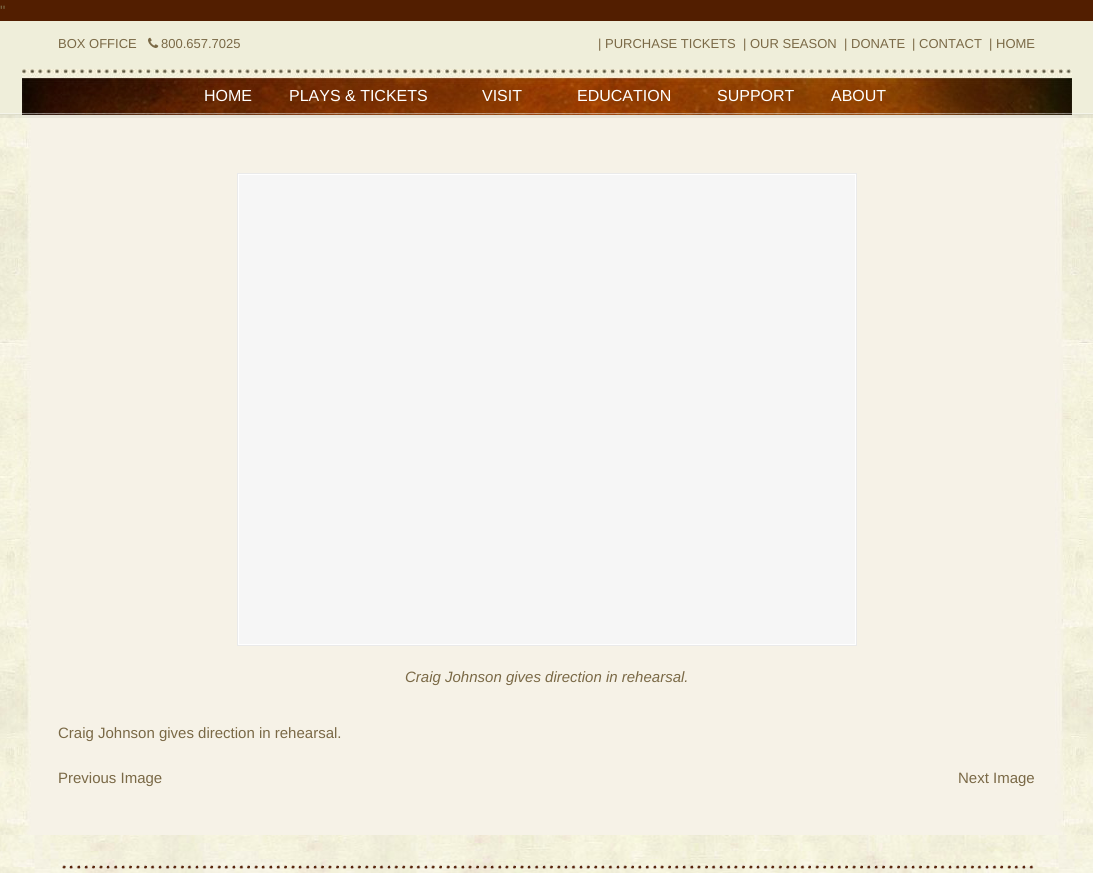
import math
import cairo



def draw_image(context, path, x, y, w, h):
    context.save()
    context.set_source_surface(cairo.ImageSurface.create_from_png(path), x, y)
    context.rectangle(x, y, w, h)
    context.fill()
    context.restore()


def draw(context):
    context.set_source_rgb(82 / 255, 30 / 255, 0)
    context.paint()
    context.set_source_rgb(239 / 255, 238 / 255, 218 / 255)
    context.rectangle(0, 21, 1093, 94)
    context.fill()
    draw_image(context, "images/1.png", 22, 69, 1050, 46)
    draw_image(context, "images/2.png", 148, 37, 11, 11)
    draw_image(context, "images/3.png", 0, 113, 1093, 2)
    draw_image(context, "images/4.png", 0, 115, 1093, 720)
    context.set_source_rgba(0, 0, 0, 0.06)
    context.rectangle(0, 115, 1093, 3)
    context.fill()
    context.set_source_rgb(246 / 255, 246 / 255, 246 / 255)
    context.rectangle(239, 175, 616, 469)
    context.fill()
    context.rectangle(237.5, 173.5, 619, 472)
    context.set_source_rgb(234 / 255, 234 / 255, 234 / 255)
    context.set_line_width(1)
    context.stroke()
    context.rectangle(238.5, 174.5, 617, 470)
    context.set_source_rgb(1, 1, 1)
    context.stroke()
    draw_image(context, "images/5.png", 0, 835, 1093, 38)
    draw_image(context, "images/6.png", 62, 865, 972, 4)
    context.select_font_face("Liberation Sans")
    context.set_font_size(15)
    context.set_source_rgb(122 / 255, 105 / 255, 70 / 255)
    context.move_to(0, 16)
    context.show_text("\"")
    context.set_font_size(13)
    context.move_to(58, 48)
    context.show_text("BOX OFFICE")
    context.move_to(161, 48)
    context.show_text("800.657.7025")
    context.move_to(598, 48)
    context.show_text("| PURCHASE TICKETS")
    context.move_to(743, 48)
    context.show_text("| OUR SEASON")
    context.move_to(844, 48)
    context.show_text("| DONATE")
    context.move_to(912, 48)
    context.show_text("| CONTACT")
    context.move_to(989, 48)
    context.show_text("| HOME")
    context.set_font_size(16)
    context.set_source_rgb(1, 1, 1)
    context.move_to(204, 101)
    context.show_text("HOME")
    context.move_to(289, 101)
    context.show_text("PLAYS & TICKETS")
    context.move_to(482, 101)
    context.show_text("VISIT")
    context.move_to(577, 101)
    context.show_text("EDUCATION")
    context.move_to(717, 101)
    context.show_text("SUPPORT")
    context.move_to(831, 101)
    context.show_text("ABOUT")
    context.select_font_face("Liberation Sans", cairo.FontSlant.ITALIC)
    context.set_font_size(15)
    context.set_source_rgb(122 / 255, 105 / 255, 70 / 255)
    context.move_to(405, 682)
    context.show_text("Craig Johnson gives direction in rehearsal.")
    context.select_font_face("Liberation Sans")
    context.move_to(58, 738)
    context.show_text("Craig Johnson gives direction in rehearsal.")
    context.move_to(58, 783)
    context.show_text("Previous Image")
    context.move_to(958, 783)
    context.show_text("Next Image")


surface = cairo.ImageSurface(cairo.Format.RGB24, 1093, 873)
context = cairo.Context(surface)
options = cairo.FontOptions()
options.set_hint_metrics(cairo.HintMetrics.OFF)
options.set_hint_style(cairo.HintStyle.NONE)
context.set_font_options(options)
context.set_miter_limit(4)
draw(context)
surface.write_to_png("out.png")
